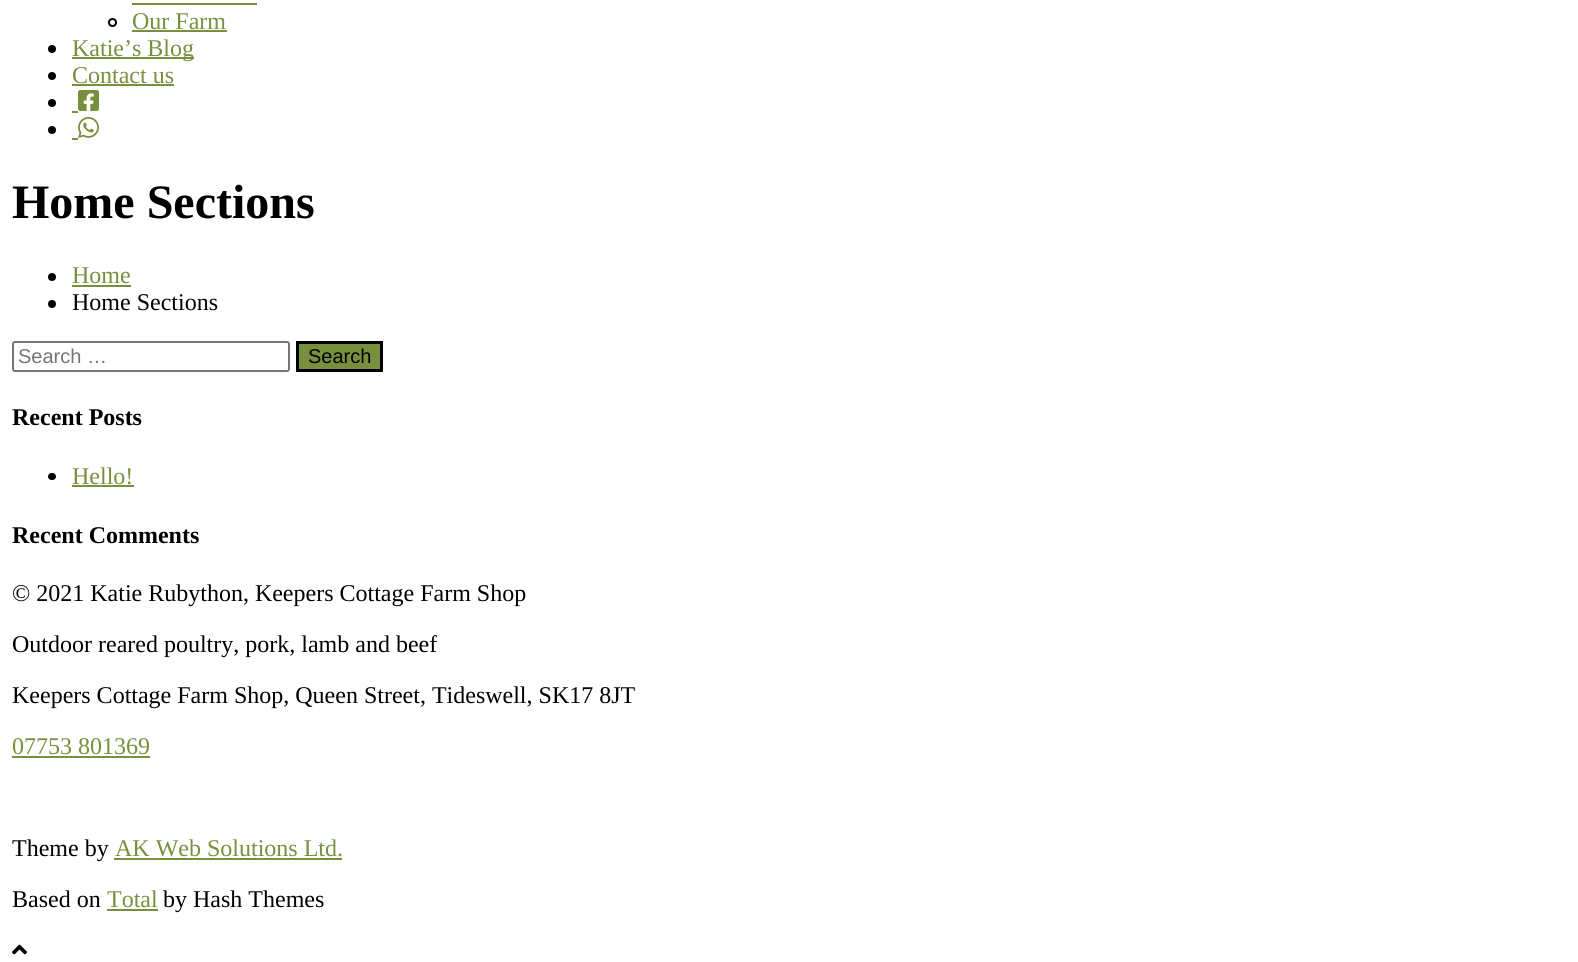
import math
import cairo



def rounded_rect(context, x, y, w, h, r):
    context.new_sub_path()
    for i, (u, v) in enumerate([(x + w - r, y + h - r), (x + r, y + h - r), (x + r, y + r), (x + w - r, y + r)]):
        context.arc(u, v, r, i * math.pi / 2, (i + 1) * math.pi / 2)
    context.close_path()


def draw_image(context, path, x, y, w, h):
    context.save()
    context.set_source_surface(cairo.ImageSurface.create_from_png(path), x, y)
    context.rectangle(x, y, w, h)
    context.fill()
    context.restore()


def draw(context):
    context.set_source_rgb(1, 1, 1)
    context.paint()
    context.set_source_rgb(120 / 255, 143 / 255, 61 / 255)
    context.rectangle(132, 3, 125, 2)
    context.fill()
    context.arc(112.5, 22.5, 3.5, 0, 2 * math.pi)
    context.set_source_rgb(0, 0, 0)
    context.stroke()
    context.set_source_rgb(120 / 255, 143 / 255, 61 / 255)
    context.rectangle(132, 30, 95, 2)
    context.fill()
    context.set_source_rgb(0, 0, 0)
    context.arc(52, 49, 4, 0, 2 * math.pi)
    context.fill()
    context.set_source_rgb(120 / 255, 143 / 255, 61 / 255)
    context.rectangle(72, 57, 122, 2)
    context.fill()
    context.set_source_rgb(0, 0, 0)
    context.arc(52, 76, 4, 0, 2 * math.pi)
    context.fill()
    context.set_source_rgb(120 / 255, 143 / 255, 61 / 255)
    context.rectangle(72, 84, 102, 2)
    context.fill()
    context.set_source_rgb(0, 0, 0)
    context.arc(52, 103, 4, 0, 2 * math.pi)
    context.fill()
    draw_image(context, "images/1.png", 78, 90, 21, 21)
    context.set_source_rgb(120 / 255, 143 / 255, 61 / 255)
    context.rectangle(72, 111, 6, 2)
    context.fill()
    context.set_source_rgb(0, 0, 0)
    context.arc(52, 130, 4, 0, 2 * math.pi)
    context.fill()
    draw_image(context, "images/2.png", 78, 117, 21, 21)
    context.set_source_rgb(120 / 255, 143 / 255, 61 / 255)
    context.rectangle(72, 138, 6, 2)
    context.fill()
    context.set_source_rgb(0, 0, 0)
    context.arc(52, 277, 4, 0, 2 * math.pi)
    context.fill()
    context.set_source_rgb(120 / 255, 143 / 255, 61 / 255)
    context.rectangle(72, 285, 59, 2)
    context.fill()
    context.set_source_rgb(0, 0, 0)
    context.arc(52, 304, 4, 0, 2 * math.pi)
    context.fill()
    rounded_rect(context, 13, 342, 276, 29, 2)
    context.set_source_rgb(118 / 255, 118 / 255, 118 / 255)
    context.stroke()
    context.set_source_rgb(120 / 255, 143 / 255, 61 / 255)
    context.rectangle(297.5, 342.5, 84, 28)
    context.fill_preserve()
    context.set_source_rgb(0, 0, 0)
    context.set_line_width(3)
    context.stroke()
    rounded_rect(context, 48, 473, 8, 7, 3.5)
    context.fill()
    context.set_source_rgb(120 / 255, 143 / 255, 61 / 255)
    context.rectangle(72, 485, 62, 2)
    context.fill()
    context.rectangle(12, 756, 138, 2)
    context.fill()
    context.rectangle(114, 858, 228, 2)
    context.fill()
    context.rectangle(107, 909, 51, 2)
    context.fill()
    draw_image(context, "images/3.png", 12, 944, 15, 11)
    context.select_font_face("Liberation Serif")
    context.set_font_size(24)
    context.move_to(132, 29)
    context.show_text("Our Farm")
    context.move_to(72, 56)
    context.show_text("Katie’s Blog")
    context.move_to(72, 83)
    context.show_text("Contact us")
    context.select_font_face("Liberation Serif", cairo.FontSlant.NORMAL, cairo.FontWeight.BOLD)
    context.set_font_size(48)
    context.set_source_rgb(0, 0, 0)
    context.move_to(12, 218)
    context.show_text("Home Sections")
    context.select_font_face("Liberation Serif")
    context.set_font_size(24)
    context.set_source_rgb(120 / 255, 143 / 255, 61 / 255)
    context.move_to(72, 283)
    context.show_text("Home")
    context.set_source_rgb(0, 0, 0)
    context.move_to(72, 310)
    context.show_text("Home Sections")
    context.select_font_face("Liberation Sans")
    context.set_font_size(20)
    context.set_source_rgb(117 / 255, 117 / 255, 117 / 255)
    context.move_to(18, 363)
    context.show_text("Search …")
    context.set_source_rgb(0, 0, 0)
    context.move_to(308, 363)
    context.show_text("Search")
    context.select_font_face("Liberation Serif", cairo.FontSlant.NORMAL, cairo.FontWeight.BOLD)
    context.set_font_size(24)
    context.move_to(12, 425)
    context.show_text("Recent Posts")
    context.select_font_face("Liberation Serif")
    context.set_source_rgb(120 / 255, 143 / 255, 61 / 255)
    context.move_to(72, 484)
    context.show_text("Hello!")
    context.select_font_face("Liberation Serif", cairo.FontSlant.NORMAL, cairo.FontWeight.BOLD)
    context.set_source_rgb(0, 0, 0)
    context.move_to(12, 543)
    context.show_text("Recent Comments")
    context.select_font_face("Liberation Serif")
    context.move_to(12, 601)
    context.show_text("© 2021 Katie Rubython, Keepers Cottage Farm Shop")
    context.move_to(12, 652)
    context.show_text("Outdoor reared poultry, pork, lamb and beef")
    context.move_to(12, 703)
    context.show_text("Keepers Cottage Farm Shop, Queen Street, Tideswell, SK17 8JT")
    context.set_source_rgb(120 / 255, 143 / 255, 61 / 255)
    context.move_to(12, 754)
    context.show_text("07753 801369")
    context.set_source_rgb(0, 0, 0)
    context.move_to(12, 856)
    context.show_text("Theme by")
    context.set_source_rgb(120 / 255, 143 / 255, 61 / 255)
    context.move_to(115, 856)
    context.show_text("AK Web Solutions Ltd.")
    context.set_source_rgb(0, 0, 0)
    context.move_to(12, 907)
    context.show_text("Based on")
    context.set_source_rgb(120 / 255, 143 / 255, 61 / 255)
    context.move_to(107, 907)
    context.show_text("Total")
    context.set_source_rgb(0, 0, 0)
    context.move_to(163, 907)
    context.show_text("by Hash Themes")


surface = cairo.ImageSurface(cairo.Format.RGB24, 1578, 962)
context = cairo.Context(surface)
options = cairo.FontOptions()
options.set_hint_metrics(cairo.HintMetrics.OFF)
options.set_hint_style(cairo.HintStyle.NONE)
context.set_font_options(options)
context.set_miter_limit(4)
draw(context)
surface.write_to_png("out.png")
